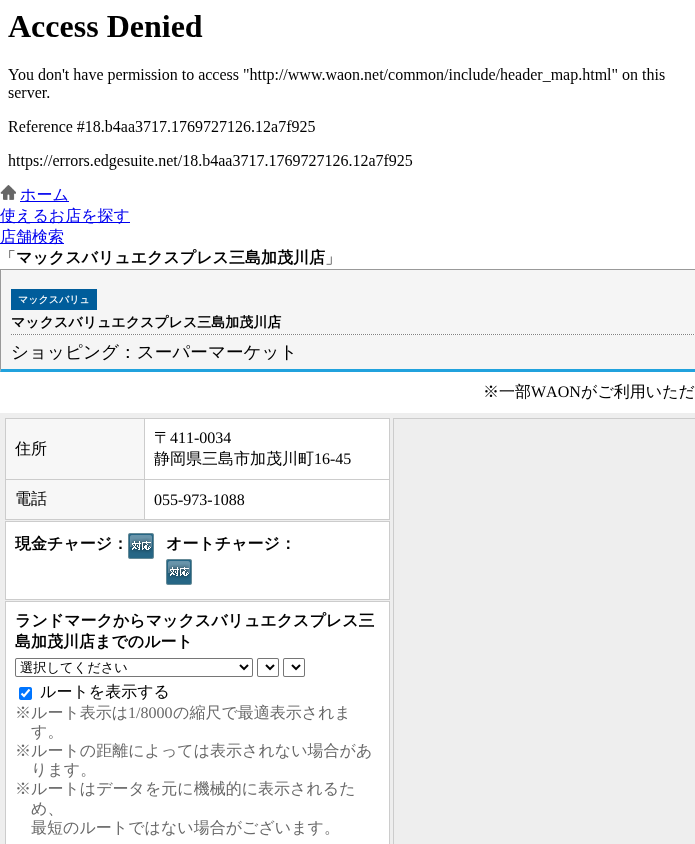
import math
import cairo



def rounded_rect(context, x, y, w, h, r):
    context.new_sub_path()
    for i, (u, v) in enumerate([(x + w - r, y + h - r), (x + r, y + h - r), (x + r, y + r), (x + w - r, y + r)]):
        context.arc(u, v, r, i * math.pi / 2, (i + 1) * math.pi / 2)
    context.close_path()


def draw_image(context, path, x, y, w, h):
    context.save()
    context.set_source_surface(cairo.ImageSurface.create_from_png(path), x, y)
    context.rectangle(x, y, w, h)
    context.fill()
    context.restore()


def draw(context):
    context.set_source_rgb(1, 1, 1)
    context.paint()
    draw_image(context, "images/1.png", 8, 15, 657, 155)
    draw_image(context, "images/2.png", 0, 185, 16, 15)
    context.set_source_rgb(0, 0, 238 / 255)
    context.rectangle(20, 201, 49, 1)
    context.fill()
    context.rectangle(0, 222, 130, 1)
    context.fill()
    context.rectangle(0, 243, 64, 1)
    context.fill()
    context.set_source_rgb(245 / 255, 245 / 255, 245 / 255)
    context.rectangle(0, 284, 695, 88)
    context.fill()
    draw_image(context, "images/3.png", 0, 269, 695, 15)
    context.set_source_rgb(33 / 255, 162 / 255, 221 / 255)
    context.new_path()
    context.move_to(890, 372)
    context.line_to(0, 372)
    context.line_to(1, 369)
    context.line_to(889, 369)
    context.close_path()
    context.fill()
    context.set_source_rgb(153 / 255, 153 / 255, 153 / 255)
    context.new_path()
    context.move_to(0, 372)
    context.line_to(0, 284)
    context.line_to(1, 284)
    context.line_to(1, 369)
    context.close_path()
    context.fill()
    draw_image(context, "images/4.png", 11, 334, 684, 1)
    context.set_source_rgb(0, 93 / 255, 155 / 255)
    context.rectangle(11, 289, 86, 21)
    context.fill()
    context.set_source_rgb(238 / 255, 238 / 255, 238 / 255)
    context.rectangle(0, 413, 695, 431)
    context.fill()
    context.set_source_rgb(1, 1, 1)
    context.rectangle(145, 419, 244, 100)
    context.fill()
    context.set_source_rgb(204 / 255, 204 / 255, 204 / 255)
    context.rectangle(5, 418, 385, 1)
    context.fill()
    context.rectangle(389, 418, 1, 102)
    context.fill()
    context.set_source_rgb(247 / 255, 247 / 255, 247 / 255)
    context.rectangle(6, 419, 138, 60)
    context.fill()
    context.set_source_rgb(204 / 255, 204 / 255, 204 / 255)
    context.rectangle(144, 519, 246, 1)
    context.fill()
    context.rectangle(144, 479, 1, 41)
    context.fill()
    context.rectangle(144, 479, 246, 1)
    context.fill()
    context.rectangle(144, 418, 1, 62)
    context.fill()
    context.rectangle(5, 519, 140, 1)
    context.fill()
    context.rectangle(5, 479, 1, 41)
    context.fill()
    context.rectangle(5, 479, 140, 1)
    context.fill()
    context.rectangle(5, 418, 1, 62)
    context.fill()
    context.set_source_rgb(247 / 255, 247 / 255, 247 / 255)
    context.rectangle(6, 480, 138, 39)
    context.fill()
    context.rectangle(5.5, 521.5, 384, 78)
    context.set_source_rgb(204 / 255, 204 / 255, 204 / 255)
    context.set_line_width(1)
    context.stroke()
    context.set_source_rgb(1, 1, 1)
    context.rectangle(6, 522, 383, 77)
    context.fill()
    draw_image(context, "images/5.png", 128, 533, 26, 26)
    draw_image(context, "images/5.png", 166, 559, 26, 26)
    context.rectangle(5.5, 601.5, 384, 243)
    context.fill_preserve()
    context.set_source_rgb(204 / 255, 204 / 255, 204 / 255)
    context.stroke()
    rounded_rect(context, 15.5, 658.5, 237, 18, 1.5)
    context.set_source_rgb(118 / 255, 118 / 255, 118 / 255)
    context.stroke()
    context.new_path()
    context.move_to(240, 665)
    context.line_to(244, 669)
    context.line_to(248, 665)
    context.set_source_rgb(0, 0, 0)
    context.set_line_width(2)
    context.stroke()
    rounded_rect(context, 257.5, 658.5, 21, 18, 1.5)
    context.set_source_rgb(118 / 255, 118 / 255, 118 / 255)
    context.set_line_width(1)
    context.stroke()
    context.new_path()
    context.move_to(266, 665)
    context.line_to(270, 669)
    context.line_to(274, 665)
    context.set_source_rgb(0, 0, 0)
    context.set_line_width(2)
    context.stroke()
    rounded_rect(context, 283.5, 658.5, 21, 18, 1.5)
    context.set_source_rgb(118 / 255, 118 / 255, 118 / 255)
    context.set_line_width(1)
    context.stroke()
    context.new_path()
    context.move_to(292, 665)
    context.line_to(296, 669)
    context.line_to(300, 665)
    context.set_source_rgb(0, 0, 0)
    context.set_line_width(2)
    context.stroke()
    context.set_source_rgb(0, 117 / 255, 1)
    rounded_rect(context, 19, 687, 13, 13, 2)
    context.fill()
    context.new_path()
    context.move_to(21.5, 693.5)
    context.line_to(24, 696)
    context.line_to(29.5, 689.5)
    context.set_source_rgb(1, 1, 1)
    context.set_line_width(2.1)
    context.stroke()
    context.rectangle(393.5, 418.5, 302, 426)
    context.set_source_rgb(204 / 255, 204 / 255, 204 / 255)
    context.set_line_width(1)
    context.stroke()
    context.select_font_face("WenQuanYi Zen Hei Medium")
    context.set_font_size(16)
    context.set_source_rgb(0, 0, 238 / 255)
    context.move_to(20, 200)
    context.show_text("ホーム")
    context.move_to(0, 221)
    context.show_text("使えるお店を探す")
    context.move_to(0, 242)
    context.show_text("店舗検索")
    context.set_source_rgb(0, 0, 0)
    context.move_to(0, 263)
    context.show_text("「")
    context.select_font_face("WenQuanYi Zen Hei", cairo.FontSlant.NORMAL, cairo.FontWeight.BOLD)
    context.move_to(16, 263)
    context.show_text("マックスバリュエクスプレス三島加茂川店")
    context.select_font_face("WenQuanYi Zen Hei Medium")
    context.move_to(325, 263)
    context.show_text("」")
    context.select_font_face("WenQuanYi Zen Hei", cairo.FontSlant.NORMAL, cairo.FontWeight.BOLD)
    context.set_font_size(10)
    context.set_source_rgb(1, 1, 1)
    context.move_to(18, 303)
    context.show_text("マックスバリュ")
    context.set_font_size(14)
    context.set_source_rgb(0, 0, 0)
    context.move_to(11, 327)
    context.show_text("マックスバリュエクスプレス三島加茂川店")
    context.select_font_face("WenQuanYi Zen Hei Medium")
    context.set_font_size(17.6)
    context.move_to(11, 358)
    context.show_text("ショッピング：スーパーマーケット")
    context.set_font_size(16)
    context.move_to(483, 397)
    context.show_text("※一部")
    context.select_font_face("Liberation Serif")
    context.move_to(531, 397)
    context.show_text("WAON")
    context.select_font_face("WenQuanYi Zen Hei Medium")
    context.move_to(581, 397)
    context.show_text("がご利用いただ")
    context.move_to(15, 454)
    context.show_text("住所")
    context.move_to(154, 443)
    context.show_text("〒")
    context.select_font_face("Liberation Serif")
    context.move_to(170, 443)
    context.show_text("411-0034")
    context.select_font_face("WenQuanYi Zen Hei Medium")
    context.move_to(154, 464)
    context.show_text("静岡県三島市加茂川町")
    context.select_font_face("Liberation Serif")
    context.move_to(314, 464)
    context.show_text("16-45")
    context.select_font_face("WenQuanYi Zen Hei Medium")
    context.move_to(15, 504)
    context.show_text("電話")
    context.select_font_face("Liberation Serif")
    context.move_to(154, 505)
    context.show_text("055-973-1088")
    context.select_font_face("WenQuanYi Zen Hei", cairo.FontSlant.NORMAL, cairo.FontWeight.BOLD)
    context.move_to(15, 549)
    context.show_text("現金チャージ：")
    context.move_to(166, 549)
    context.show_text("オートチャージ：")
    context.move_to(15, 626)
    context.show_text("ランドマークからマックスバリュエクスプレス三")
    context.move_to(15, 647)
    context.show_text("島加茂川店までのルート")
    context.select_font_face("WenQuanYi Zen Hei Medium")
    context.set_font_size(13.25)
    context.move_to(20, 672)
    context.show_text("選択してください")
    context.set_font_size(16)
    context.move_to(40, 697)
    context.show_text("ルートを表示する")
    context.set_source_rgb(102 / 255, 102 / 255, 102 / 255)
    context.move_to(15, 718)
    context.show_text("※ルート表示は")
    context.select_font_face("Liberation Serif")
    context.move_to(128, 718)
    context.show_text("1/8000")
    context.select_font_face("WenQuanYi Zen Hei Medium")
    context.move_to(173, 718)
    context.show_text("の縮尺で最適表示されま")
    context.move_to(31, 737)
    context.show_text("す。")
    context.move_to(15, 756)
    context.show_text("※ルートの距離によっては表示されない場合があ")
    context.move_to(31, 775)
    context.show_text("ります。")
    context.move_to(15, 794)
    context.show_text("※ルートはデータを元に機械的に表示されるた")
    context.move_to(31, 814)
    context.show_text("め、")
    context.move_to(31, 833)
    context.show_text("最短のルートではない場合がございます。")


surface = cairo.ImageSurface(cairo.Format.RGB24, 695, 844)
context = cairo.Context(surface)
options = cairo.FontOptions()
options.set_hint_metrics(cairo.HintMetrics.OFF)
options.set_hint_style(cairo.HintStyle.NONE)
context.set_font_options(options)
context.set_miter_limit(4)
draw(context)
surface.write_to_png("out.png")
